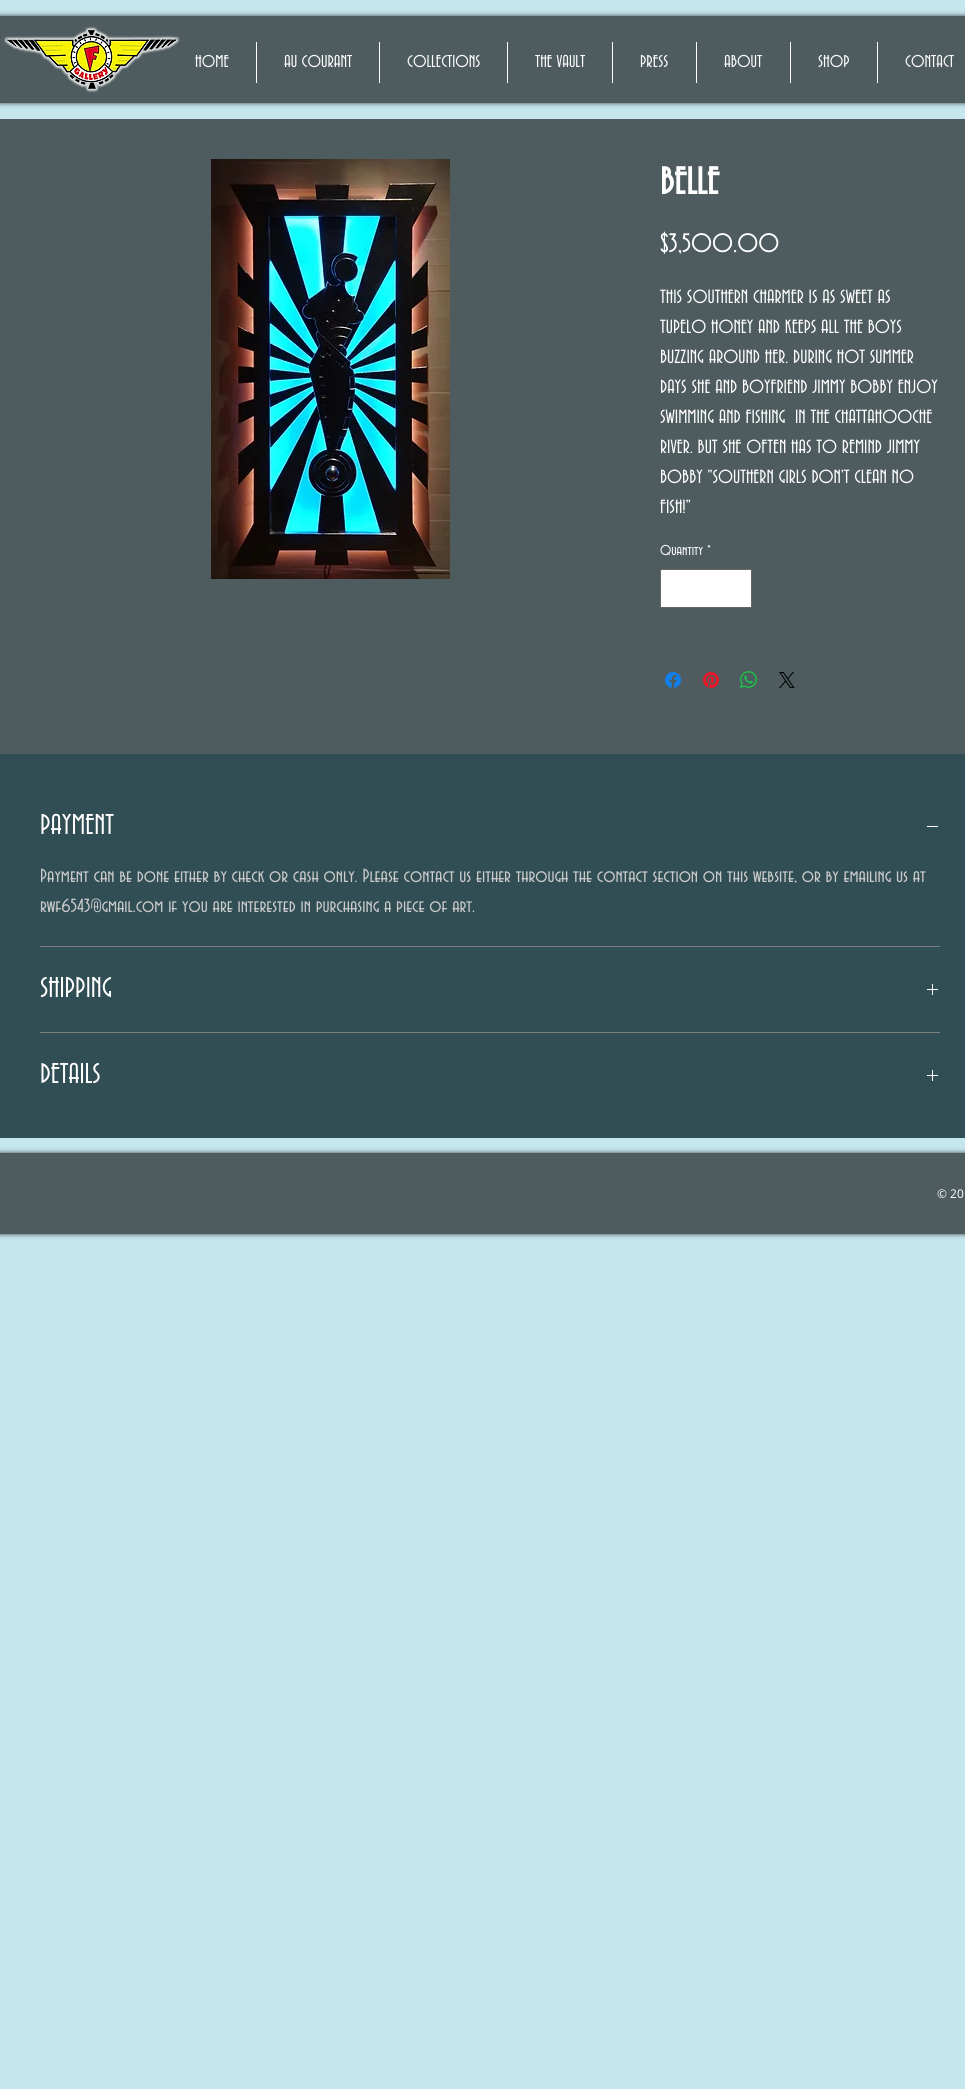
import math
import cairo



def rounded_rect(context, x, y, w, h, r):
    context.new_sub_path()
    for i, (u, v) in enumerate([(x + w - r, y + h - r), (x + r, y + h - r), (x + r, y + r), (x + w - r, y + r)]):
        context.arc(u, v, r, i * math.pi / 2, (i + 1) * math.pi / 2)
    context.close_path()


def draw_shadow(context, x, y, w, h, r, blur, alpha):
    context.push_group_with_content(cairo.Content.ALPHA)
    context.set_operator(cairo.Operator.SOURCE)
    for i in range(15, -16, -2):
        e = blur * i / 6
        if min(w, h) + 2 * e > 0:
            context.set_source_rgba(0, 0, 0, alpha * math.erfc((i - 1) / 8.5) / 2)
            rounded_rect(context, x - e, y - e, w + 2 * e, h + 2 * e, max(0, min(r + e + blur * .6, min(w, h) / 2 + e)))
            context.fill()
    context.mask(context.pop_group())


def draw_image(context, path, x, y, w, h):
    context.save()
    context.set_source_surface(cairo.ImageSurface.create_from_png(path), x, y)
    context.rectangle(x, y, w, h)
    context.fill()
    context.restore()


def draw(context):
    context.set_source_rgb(197 / 255, 230 / 255, 237 / 255)
    context.paint()
    context.set_source_rgb(0, 0, 0)
    draw_shadow(context, 0, 16, 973, 87, 0, 2.5, 0.7)
    context.set_source_rgb(79 / 255, 92 / 255, 95 / 255)
    context.rectangle(0, 16, 965, 87)
    context.fill()
    draw_image(context, "images/1.png", 3, 26, 177, 67)
    context.set_source_rgb(1, 1, 1)
    context.rectangle(256, 42, 1, 41)
    context.fill()
    context.rectangle(379, 42, 1, 41)
    context.fill()
    context.rectangle(507, 42, 1, 41)
    context.fill()
    context.rectangle(612, 42, 1, 41)
    context.fill()
    context.rectangle(696, 42, 1, 41)
    context.fill()
    context.rectangle(790, 42, 1, 41)
    context.fill()
    context.rectangle(877, 42, 1, 41)
    context.fill()
    context.set_source_rgb(79 / 255, 92 / 255, 95 / 255)
    context.rectangle(0, 119, 965, 635)
    context.fill()
    draw_image(context, "images/2.png", 211, 159, 239, 420)
    context.set_source_rgb(1, 1, 1)
    context.rectangle(660.5, 569.5, 91, 38)
    context.fill_preserve()
    context.set_source_rgb(102 / 255, 102 / 255, 102 / 255)
    context.set_line_width(1)
    context.stroke()
    draw_image(context, "images/3.png", 665, 672, 16, 16)
    draw_image(context, "images/4.png", 703, 672, 16, 16)
    draw_image(context, "images/5.png", 740, 671, 17, 17)
    draw_image(context, "images/6.png", 779, 672, 16, 16)
    context.set_source_rgb(49 / 255, 78 / 255, 84 / 255)
    context.rectangle(0, 754, 965, 384)
    context.fill()
    context.set_source_rgb(127 / 255, 126 / 255, 126 / 255)
    context.rectangle(40, 946, 900, 1)
    context.fill()
    context.set_source_rgb(1, 1, 1)
    context.rectangle(927, 826, 11, 1)
    context.fill()
    context.set_source_rgb(127 / 255, 126 / 255, 126 / 255)
    context.rectangle(40, 1032, 900, 1)
    context.fill()
    draw_image(context, "images/7.png", 927, 984, 11, 11)
    draw_image(context, "images/7.png", 927, 1070, 11, 11)
    context.set_source_rgb(0, 0, 0)
    draw_shadow(context, 0, 1153, 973, 81, 0, 2.5, 0.7)
    context.set_source_rgb(79 / 255, 92 / 255, 95 / 255)
    context.rectangle(0, 1153, 965, 81)
    context.fill()
    context.select_font_face("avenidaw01")
    context.set_font_size(18)
    context.set_source_rgb(1, 1, 1)
    context.move_to(195, 67)
    context.show_text("HOME")
    context.move_to(284, 67)
    context.show_text("AU COURANT")
    context.move_to(407, 67)
    context.show_text("COLLECTIONS")
    context.move_to(535, 67)
    context.show_text("THE VAULT")
    context.move_to(640, 67)
    context.show_text("PRESS")
    context.move_to(724, 67)
    context.show_text("ABOUT")
    context.move_to(818, 67)
    context.show_text("SHOP")
    context.move_to(905, 67)
    context.show_text("CONTACT")
    context.select_font_face("avenidaw01", cairo.FontSlant.NORMAL, cairo.FontWeight.BOLD)
    context.set_font_size(40)
    context.move_to(660, 194)
    context.show_text("BELLE")
    context.select_font_face("avenidaw01")
    context.set_font_size(28)
    context.move_to(660, 252)
    context.show_text("$3,500.00")
    context.set_font_size(20)
    context.move_to(660, 303)
    context.show_text("THIS SOUTHERN CHARMER IS AS SWEET AS")
    context.move_to(660, 333)
    context.show_text("TUPELO HONEY AND KEEPS ALL THE BOYS")
    context.move_to(660, 363)
    context.show_text("BUZZING AROUND HER. DURING HOT SUMMER")
    context.move_to(660, 393)
    context.show_text("DAYS SHE AND BOYFRIEND JIMMY BOBBY ENJOY")
    context.move_to(660, 423)
    context.show_text("SWIMMING AND FISHING  IN THE CHATTAHOOCHE")
    context.move_to(660, 453)
    context.show_text("RIVER. BUT SHE OFTEN HAS TO REMIND JIMMY")
    context.move_to(660, 483)
    context.show_text("BOBBY \"SOUTHERN GIRLS DON'T CLEAN NO")
    context.move_to(660, 513)
    context.show_text("FISH!\"")
    context.set_font_size(15)
    context.move_to(660, 555)
    context.show_text("Quantity")
    context.move_to(707, 555)
    context.show_text("*")
    context.set_font_size(30)
    context.move_to(40, 834)
    context.show_text("PAYMENT")
    context.set_font_size(20)
    context.set_source_rgb(202 / 255, 202 / 255, 202 / 255)
    context.move_to(40, 882)
    context.show_text("Payment can be done either by check or cash only. Please contact us either through the contact section on this website, or by emailing us at")
    context.move_to(40, 912)
    context.show_text("rwf6543@gmail.com if you are interested in purchasing a piece of art.")
    context.set_font_size(30)
    context.set_source_rgb(1, 1, 1)
    context.move_to(40, 997)
    context.show_text("SHIPPING")
    context.move_to(40, 1083)
    context.show_text("DETAILS")
    context.select_font_face("Open Sans")
    context.set_font_size(12)
    context.move_to(937, 1198)
    context.show_text("© 20")


surface = cairo.ImageSurface(cairo.Format.RGB24, 965, 2089)
context = cairo.Context(surface)
options = cairo.FontOptions()
options.set_hint_metrics(cairo.HintMetrics.OFF)
options.set_hint_style(cairo.HintStyle.NONE)
context.set_font_options(options)
context.set_miter_limit(4)
draw(context)
surface.write_to_png("out.png")
